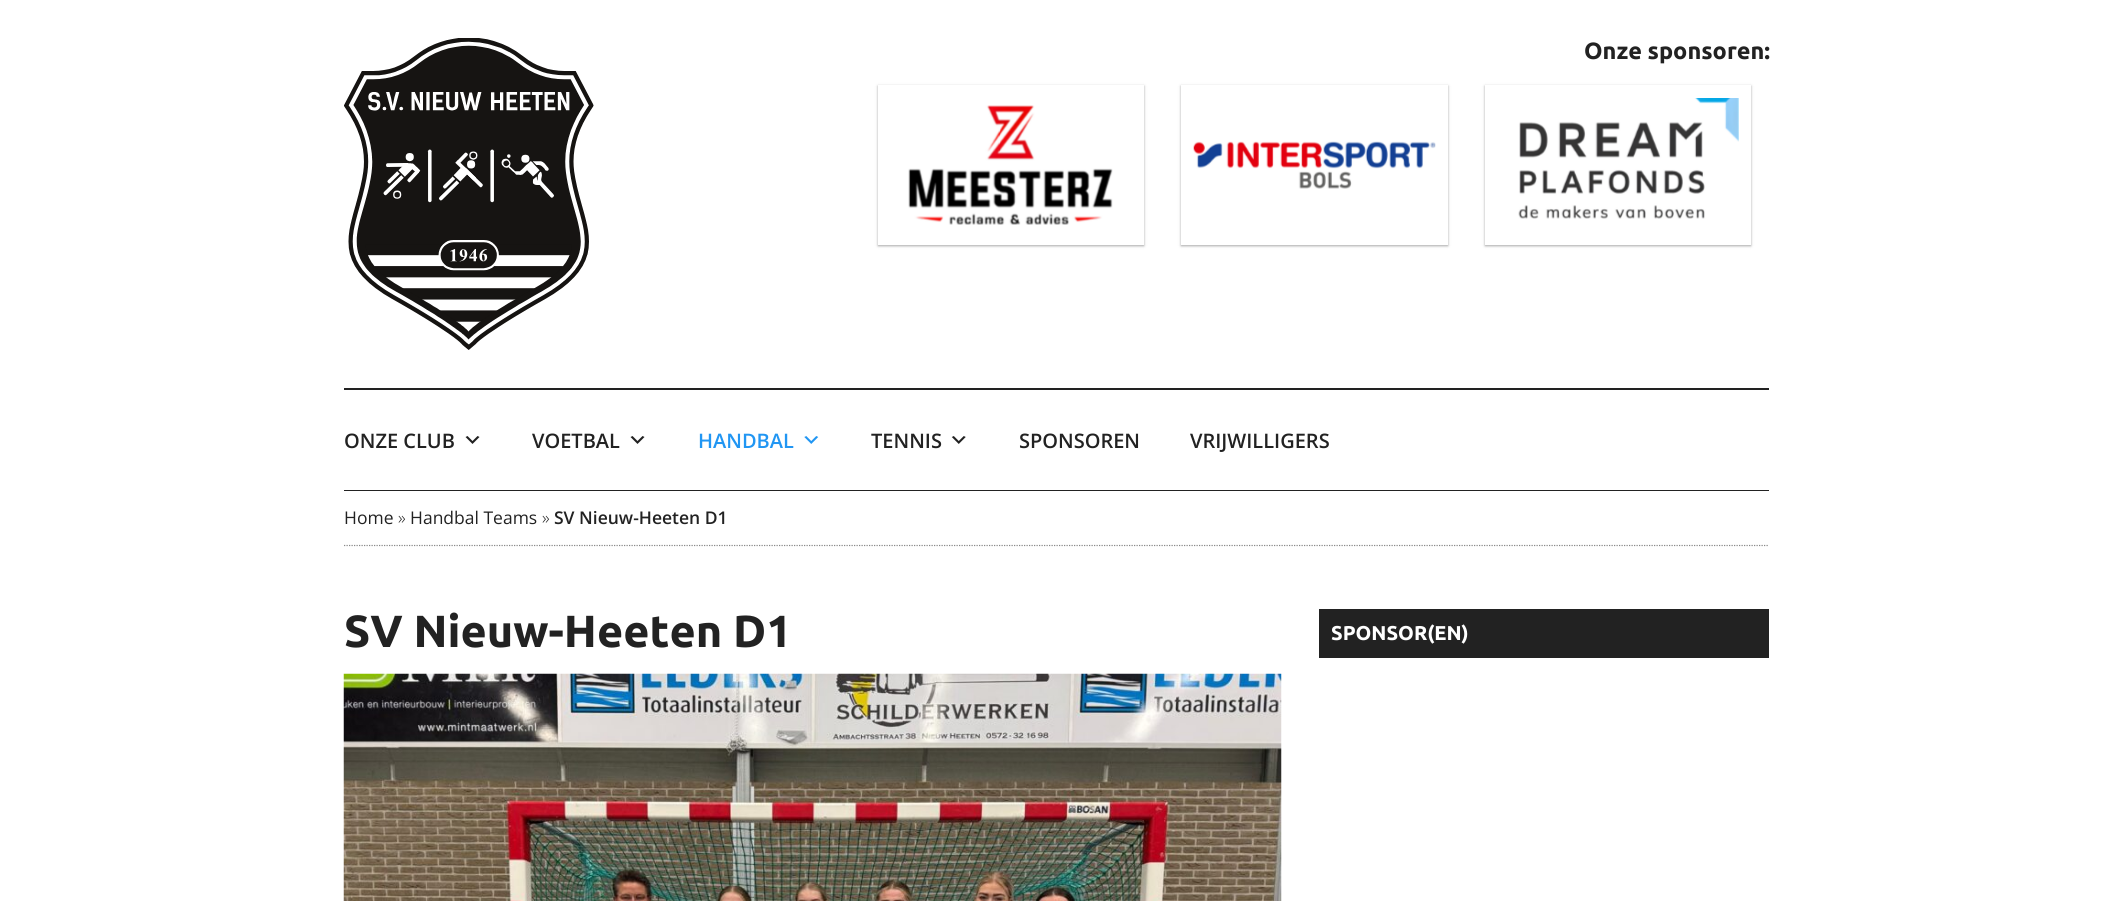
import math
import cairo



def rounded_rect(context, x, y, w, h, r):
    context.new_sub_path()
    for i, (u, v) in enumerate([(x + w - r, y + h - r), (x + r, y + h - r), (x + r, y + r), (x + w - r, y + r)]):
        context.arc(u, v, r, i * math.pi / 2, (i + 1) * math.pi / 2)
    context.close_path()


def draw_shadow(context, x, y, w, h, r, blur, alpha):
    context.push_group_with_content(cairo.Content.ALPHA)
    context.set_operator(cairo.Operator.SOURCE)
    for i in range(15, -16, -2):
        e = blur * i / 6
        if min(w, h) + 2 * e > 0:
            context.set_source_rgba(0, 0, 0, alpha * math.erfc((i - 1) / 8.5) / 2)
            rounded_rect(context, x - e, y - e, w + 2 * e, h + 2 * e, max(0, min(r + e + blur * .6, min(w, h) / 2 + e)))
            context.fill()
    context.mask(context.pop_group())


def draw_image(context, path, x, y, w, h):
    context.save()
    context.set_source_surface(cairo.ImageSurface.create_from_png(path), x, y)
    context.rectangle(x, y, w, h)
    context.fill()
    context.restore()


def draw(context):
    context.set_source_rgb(1, 1, 1)
    context.paint()
    context.set_source_rgb(34 / 255, 34 / 255, 34 / 255)
    context.rectangle(344, 388, 1425, 2)
    context.fill()
    draw_image(context, "images/1.png", 344, 38, 250, 312)
    context.save()
    context.set_fill_rule(cairo.FillRule.EVEN_ODD)
    context.new_path()
    context.move_to(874, 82)
    context.line_to(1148, 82)
    context.line_to(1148, 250)
    context.line_to(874, 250)
    context.close_path()
    context.move_to(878, 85)
    context.line_to(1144, 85)
    context.line_to(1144, 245)
    context.line_to(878, 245)
    context.close_path()
    context.clip()
    context.set_source_rgb(0, 0, 0)
    draw_shadow(context, 878, 86, 266, 160, 0, 1, 0.24)
    context.restore()
    context.save()
    context.set_fill_rule(cairo.FillRule.EVEN_ODD)
    context.new_path()
    context.move_to(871, 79)
    context.line_to(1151, 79)
    context.line_to(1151, 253)
    context.line_to(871, 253)
    context.close_path()
    context.move_to(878, 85)
    context.line_to(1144, 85)
    context.line_to(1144, 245)
    context.line_to(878, 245)
    context.close_path()
    context.clip()
    context.set_source_rgb(0, 0, 0)
    draw_shadow(context, 878, 86, 266, 160, 0, 2, 0.12)
    context.restore()
    draw_image(context, "images/2.png", 908, 105, 205, 120)
    context.save()
    context.set_fill_rule(cairo.FillRule.EVEN_ODD)
    context.new_path()
    context.move_to(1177, 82)
    context.line_to(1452, 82)
    context.line_to(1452, 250)
    context.line_to(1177, 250)
    context.close_path()
    context.move_to(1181, 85)
    context.line_to(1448, 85)
    context.line_to(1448, 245)
    context.line_to(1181, 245)
    context.close_path()
    context.clip()
    context.set_source_rgb(0, 0, 0)
    draw_shadow(context, 1181, 86, 267, 160, 0, 1, 0.24)
    context.restore()
    context.save()
    context.set_fill_rule(cairo.FillRule.EVEN_ODD)
    context.new_path()
    context.move_to(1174, 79)
    context.line_to(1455, 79)
    context.line_to(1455, 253)
    context.line_to(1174, 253)
    context.close_path()
    context.move_to(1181, 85)
    context.line_to(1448, 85)
    context.line_to(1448, 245)
    context.line_to(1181, 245)
    context.close_path()
    context.clip()
    context.set_source_rgb(0, 0, 0)
    draw_shadow(context, 1181, 86, 267, 160, 0, 2, 0.12)
    context.restore()
    draw_image(context, "images/3.png", 1193, 141, 243, 48)
    context.save()
    context.set_fill_rule(cairo.FillRule.EVEN_ODD)
    context.new_path()
    context.move_to(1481, 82)
    context.line_to(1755, 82)
    context.line_to(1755, 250)
    context.line_to(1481, 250)
    context.close_path()
    context.move_to(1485, 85)
    context.line_to(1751, 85)
    context.line_to(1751, 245)
    context.line_to(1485, 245)
    context.close_path()
    context.clip()
    context.set_source_rgb(0, 0, 0)
    draw_shadow(context, 1485, 86, 266, 160, 0, 1, 0.24)
    context.restore()
    context.save()
    context.set_fill_rule(cairo.FillRule.EVEN_ODD)
    context.new_path()
    context.move_to(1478, 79)
    context.line_to(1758, 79)
    context.line_to(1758, 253)
    context.line_to(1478, 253)
    context.close_path()
    context.move_to(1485, 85)
    context.line_to(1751, 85)
    context.line_to(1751, 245)
    context.line_to(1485, 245)
    context.close_path()
    context.clip()
    context.set_source_rgb(0, 0, 0)
    draw_shadow(context, 1485, 86, 266, 160, 0, 2, 0.12)
    context.restore()
    draw_image(context, "images/4.png", 1518, 98, 221, 121)
    context.rectangle(344, 490, 1425, 1)
    context.fill()
    draw_image(context, "images/5.png", 465, 436, 15, 8)
    draw_image(context, "images/5.png", 630, 436, 15, 8)
    draw_image(context, "images/6.png", 804, 436, 15, 8)
    draw_image(context, "images/7.png", 951, 436, 15, 8)
    context.new_path()
    context.move_to(344, 545.5)
    context.line_to(1769, 545.5)
    context.set_source_rgb(136 / 255, 136 / 255, 136 / 255)
    context.set_line_width(1.2)
    context.set_dash([1.25, 1.25])
    context.stroke()
    draw_image(context, "images/8.png", 343, 673, 939, 228)
    context.set_source_rgb(34 / 255, 34 / 255, 34 / 255)
    context.rectangle(1319, 609, 450, 49)
    context.fill()
    context.select_font_face("Ubuntu", cairo.FontSlant.NORMAL, cairo.FontWeight.BOLD)
    context.set_font_size(23.5)
    context.move_to(1584, 59)
    context.show_text("Onze sponsoren:")
    context.select_font_face("Open Sans SemiBold")
    context.set_font_size(20)
    context.move_to(344, 448)
    context.show_text("ONZE CLUB")
    context.move_to(532, 448)
    context.show_text("VOETBAL")
    context.set_source_rgb(33 / 255, 150 / 255, 243 / 255)
    context.move_to(698, 448)
    context.show_text("HANDBAL")
    context.set_source_rgb(34 / 255, 34 / 255, 34 / 255)
    context.move_to(871, 448)
    context.show_text("TENNIS")
    context.move_to(1019, 448)
    context.show_text("SPONSOREN")
    context.move_to(1190, 448)
    context.show_text("VRIJWILLIGERS")
    context.select_font_face("Open Sans")
    context.set_font_size(17.5)
    context.move_to(344, 524)
    context.show_text("Home")
    context.select_font_face("Open Sans Light")
    context.move_to(398, 524)
    context.show_text("»")
    context.select_font_face("Open Sans")
    context.move_to(410, 524)
    context.show_text("Handbal Teams")
    context.select_font_face("Open Sans Light")
    context.move_to(542, 524)
    context.show_text("»")
    context.select_font_face("Open Sans SemiBold")
    context.move_to(554, 524)
    context.show_text("SV Nieuw-Heeten D1")
    context.select_font_face("Ubuntu", cairo.FontSlant.NORMAL, cairo.FontWeight.BOLD)
    context.set_font_size(45)
    context.move_to(344, 647)
    context.show_text("SV Nieuw-Heeten D1")
    context.set_font_size(20)
    context.set_source_rgb(1, 1, 1)
    context.move_to(1331, 640)
    context.show_text("SPONSOR(EN)")


surface = cairo.ImageSurface(cairo.Format.RGB24, 2112, 901)
context = cairo.Context(surface)
options = cairo.FontOptions()
options.set_hint_metrics(cairo.HintMetrics.OFF)
options.set_hint_style(cairo.HintStyle.NONE)
context.set_font_options(options)
context.set_miter_limit(4)
draw(context)
surface.write_to_png("out.png")
